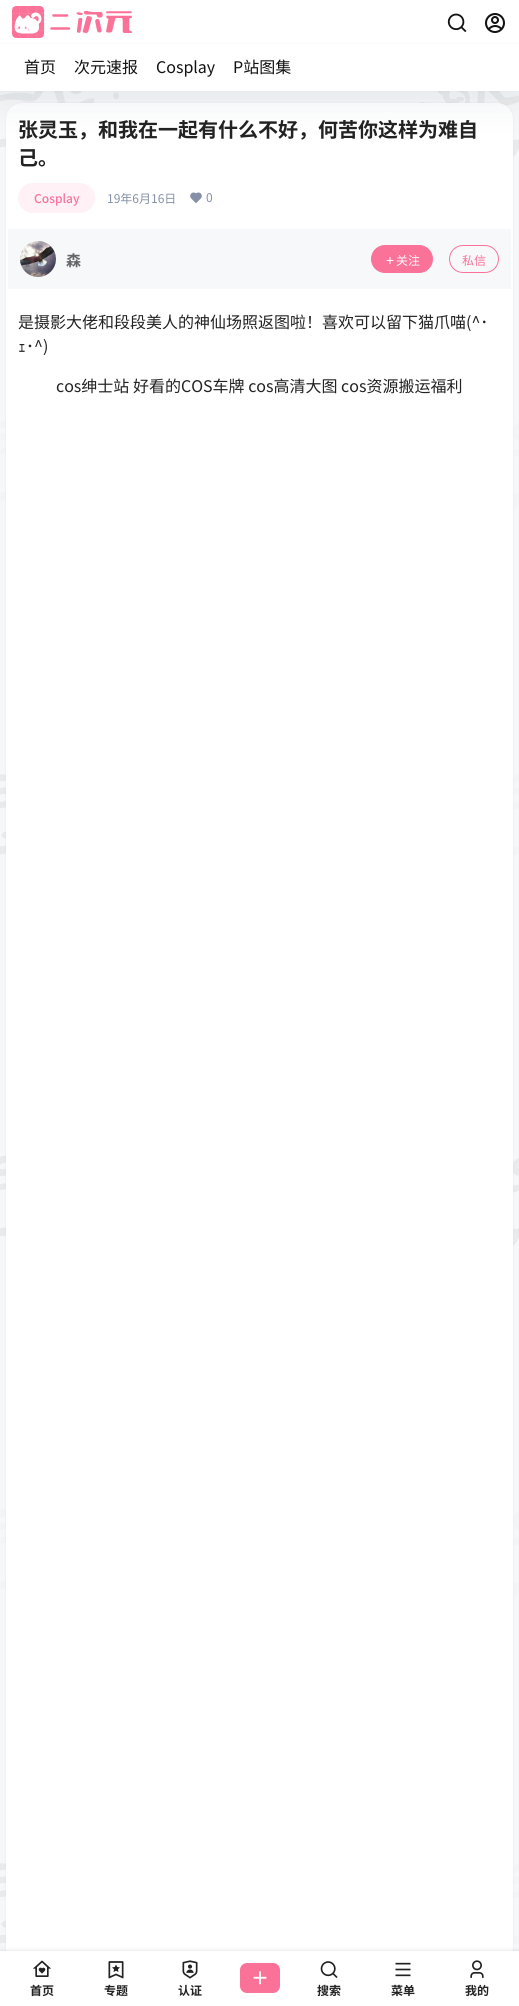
import math
import cairo



def rounded_rect(context, x, y, w, h, r):
    context.new_sub_path()
    for i, (u, v) in enumerate([(x + w - r, y + h - r), (x + r, y + h - r), (x + r, y + r), (x + w - r, y + r)]):
        context.arc(u, v, r, i * math.pi / 2, (i + 1) * math.pi / 2)
    context.close_path()


def draw_shadow(context, x, y, w, h, r, blur, alpha):
    context.push_group_with_content(cairo.Content.ALPHA)
    context.set_operator(cairo.Operator.SOURCE)
    for i in range(15, -16, -2):
        e = blur * i / 6
        if min(w, h) + 2 * e > 0:
            context.set_source_rgba(0, 0, 0, alpha * math.erfc((i - 1) / 8.5) / 2)
            rounded_rect(context, x - e, y - e, w + 2 * e, h + 2 * e, max(0, min(r + e + blur * .6, min(w, h) / 2 + e)))
            context.fill()
    context.mask(context.pop_group())


def draw_image(context, path, x, y, w, h):
    context.save()
    context.set_source_surface(cairo.ImageSurface.create_from_png(path), x, y)
    context.rectangle(x, y, w, h)
    context.fill()
    context.restore()


def draw(context):
    context.set_source_rgb(246 / 255, 247 / 255, 248 / 255)
    context.paint()
    draw_image(context, "images/1.png", 0, 91, 519, 1853)
    context.set_source_rgb(98 / 255, 124 / 255, 153 / 255)
    draw_shadow(context, 6, 103, 507, 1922, 16, 1, 0.1)
    context.set_source_rgb(1, 1, 1)
    rounded_rect(context, 6, 103, 507, 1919, 16)
    context.fill()
    context.set_source_rgb(17 / 255, 58 / 255, 93 / 255)
    draw_shadow(context, 0, 5, 519, 91, 0, 20, 0.1)
    context.set_source_rgb(1, 1, 1)
    context.rectangle(0, 0, 519, 91)
    context.fill()
    draw_image(context, "images/2.png", 447, 13, 20, 20)
    draw_image(context, "images/3.png", 485, 13, 20, 20)
    context.set_source_rgb(248 / 255, 248 / 255, 248 / 255)
    context.rectangle(0, 43, 519, 1)
    context.fill()
    draw_image(context, "images/4.png", 12, 6, 120, 32)
    context.set_source_rgb(1, 241 / 255, 245 / 255)
    rounded_rect(context, 18, 183, 77, 30, 15)
    context.fill()
    draw_image(context, "images/5.png", 190, 192, 12, 12)
    context.set_source_rgb(247 / 255, 248 / 255, 250 / 255)
    context.rectangle(8, 229, 503, 60)
    context.fill()
    draw_image(context, "images/6.png", 20, 241, 36, 36)
    context.set_source_rgb(251 / 255, 114 / 255, 153 / 255)
    rounded_rect(context, 371.5, 245.5, 61, 27, 13.5)
    context.fill_preserve()
    context.set_line_width(1)
    context.stroke()
    draw_image(context, "images/7.png", 386, 257, 8, 7)
    rounded_rect(context, 449.5, 245.5, 49, 27, 13.5)
    context.stroke()
    context.set_source_rgb(26 / 255, 26 / 255, 26 / 255)
    draw_shadow(context, 0, 1950, 519, 55, 0, 1.5, 0.1)
    context.set_source_rgb(1, 1, 1)
    context.rectangle(0, 1951, 519, 55)
    context.fill()
    draw_image(context, "images/8.png", 33, 1960, 18, 17)
    draw_image(context, "images/9.png", 108, 1961, 16, 18)
    draw_image(context, "images/10.png", 182, 1960, 16, 19)
    context.set_source_rgb(251 / 255, 114 / 255, 153 / 255)
    rounded_rect(context, 240, 1963, 40, 30, 7)
    context.fill()
    draw_image(context, "images/11.png", 253, 1971, 14, 14)
    draw_image(context, "images/12.png", 320, 1961, 18, 17)
    draw_image(context, "images/13.png", 395, 1962, 16, 15)
    draw_image(context, "images/14.png", 470, 1960, 14, 18)
    context.select_font_face("Noto Sans CJK SC")
    context.set_font_size(16)
    context.set_source_rgb(18 / 255, 18 / 255, 18 / 255)
    context.move_to(24, 73)
    context.show_text("首页")
    context.move_to(74, 73)
    context.show_text("次元速报")
    context.move_to(156, 73)
    context.show_text("Cosplay")
    context.move_to(233, 73)
    context.show_text("P站图集")
    context.select_font_face("Noto Sans CJK SC", cairo.FontSlant.NORMAL, cairo.FontWeight.BOLD)
    context.set_font_size(20)
    context.set_source_rgb(34 / 255, 34 / 255, 34 / 255)
    context.move_to(18, 137)
    context.show_text("张灵玉，和我在一起有什么不好，何苦你这样为难自")
    context.move_to(18, 165)
    context.show_text("己。")
    context.select_font_face("Noto Sans CJK SC Medium")
    context.set_font_size(12)
    context.set_source_rgb(251 / 255, 114 / 255, 153 / 255)
    context.move_to(34, 203)
    context.show_text("Cosplay")
    context.select_font_face("Noto Sans CJK SC")
    context.set_source_rgb(133 / 255, 144 / 255, 166 / 255)
    context.move_to(107, 203)
    context.show_text("19年6月16日")
    context.move_to(206, 202)
    context.show_text("0")
    context.select_font_face("Noto Sans CJK SC", cairo.FontSlant.NORMAL, cairo.FontWeight.BOLD)
    context.set_font_size(15)
    context.set_source_rgb(102 / 255, 102 / 255, 102 / 255)
    context.move_to(66, 266)
    context.show_text("森")
    context.select_font_face("Noto Sans CJK SC")
    context.set_font_size(12)
    context.set_source_rgb(1, 1, 1)
    context.move_to(396, 265)
    context.show_text("关注")
    context.set_source_rgb(251 / 255, 114 / 255, 153 / 255)
    context.move_to(462, 265)
    context.show_text("私信")
    context.set_font_size(16)
    context.set_source_rgb(34 / 255, 34 / 255, 34 / 255)
    context.move_to(18, 328)
    context.show_text("是摄影大佬和段段美人的神仙场照返图啦！喜欢可以留下猫爪喵(^･")
    context.move_to(18, 352)
    context.show_text("ｪ･^)")
    context.move_to(56, 392)
    context.show_text("cos绅士站 好看的COS车牌 cos高清大图 cos资源搬运福利")
    context.select_font_face("Noto Sans CJK SC", cairo.FontSlant.NORMAL, cairo.FontWeight.BOLD)
    context.set_font_size(12)
    context.move_to(30, 1995)
    context.show_text("首页")
    context.move_to(104, 1995)
    context.show_text("专题")
    context.move_to(178, 1995)
    context.show_text("认证")
    context.move_to(317, 1995)
    context.show_text("搜索")
    context.move_to(391, 1995)
    context.show_text("菜单")
    context.move_to(465, 1995)
    context.show_text("我的")


surface = cairo.ImageSurface(cairo.Format.RGB24, 519, 2006)
context = cairo.Context(surface)
options = cairo.FontOptions()
options.set_hint_metrics(cairo.HintMetrics.OFF)
options.set_hint_style(cairo.HintStyle.NONE)
context.set_font_options(options)
context.set_miter_limit(4)
draw(context)
surface.write_to_png("out.png")
